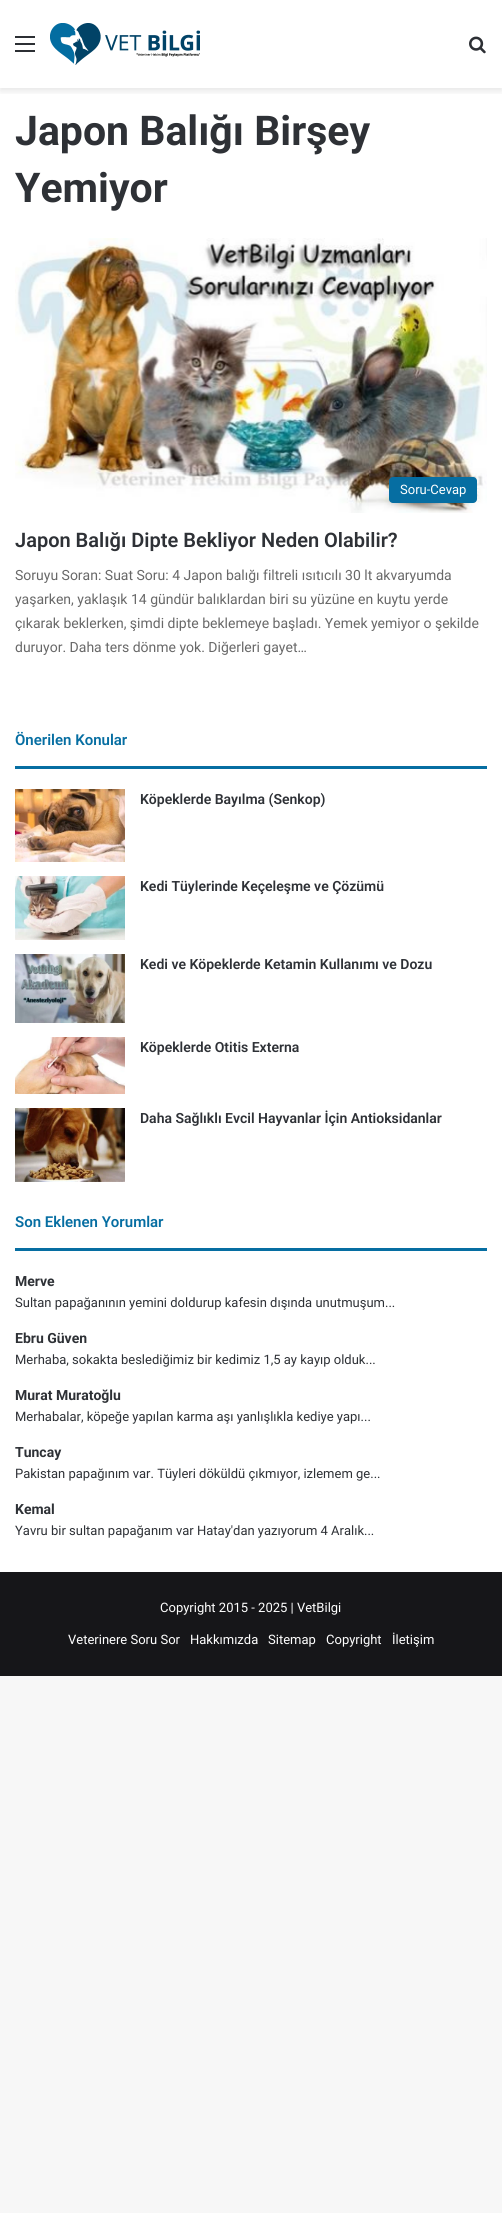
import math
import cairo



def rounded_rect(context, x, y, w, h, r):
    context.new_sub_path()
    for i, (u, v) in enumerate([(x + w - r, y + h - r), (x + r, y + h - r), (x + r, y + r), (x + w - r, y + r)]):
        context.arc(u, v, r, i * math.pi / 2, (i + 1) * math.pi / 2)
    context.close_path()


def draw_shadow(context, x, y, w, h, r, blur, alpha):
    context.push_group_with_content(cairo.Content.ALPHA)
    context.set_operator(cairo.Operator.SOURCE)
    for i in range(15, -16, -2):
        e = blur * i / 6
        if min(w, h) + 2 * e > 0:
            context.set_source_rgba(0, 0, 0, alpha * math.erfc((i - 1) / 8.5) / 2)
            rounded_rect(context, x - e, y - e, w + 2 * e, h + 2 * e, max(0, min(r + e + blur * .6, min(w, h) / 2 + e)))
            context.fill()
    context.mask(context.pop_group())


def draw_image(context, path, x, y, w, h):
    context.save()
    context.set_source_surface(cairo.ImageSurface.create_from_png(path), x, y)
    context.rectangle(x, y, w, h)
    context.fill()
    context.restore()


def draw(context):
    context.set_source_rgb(247 / 255, 247 / 255, 247 / 255)
    context.paint()
    context.set_source_rgb(1, 1, 1)
    context.rectangle(0, 0, 502, 1572)
    context.fill()
    context.save()
    context.rectangle(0, 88, 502, 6)
    context.clip()
    context.set_source_rgb(0, 0, 0)
    draw_shadow(context, 0, 3, 502, 88, 0, 3.5, 0.1)
    context.restore()
    context.set_source_rgb(44 / 255, 47 / 255, 52 / 255)
    context.rectangle(15, 43, 20, 2)
    context.fill()
    context.rectangle(15, 36, 20, 2)
    context.fill()
    context.rectangle(15, 50, 20, 2)
    context.fill()
    draw_image(context, "images/1.png", 50, 23, 150, 42)
    draw_image(context, "images/2.png", 469, 36, 17, 18)
    draw_image(context, "images/3.png", 15, 238, 472, 275)
    context.set_source_rgb(6 / 255, 110 / 255, 162 / 255)
    rounded_rect(context, 389, 477, 88, 26, 4)
    context.fill()
    context.rectangle(15, 766, 472, 3)
    context.fill()
    draw_image(context, "images/4.png", 15, 789, 110, 73)
    draw_image(context, "images/5.png", 15, 876, 110, 64)
    draw_image(context, "images/6.png", 15, 954, 110, 69)
    draw_image(context, "images/7.png", 15, 1037, 110, 57)
    draw_image(context, "images/8.png", 15, 1108, 110, 74)
    context.rectangle(15, 1248, 472, 3)
    context.fill()
    context.set_source_rgb(22 / 255, 22 / 255, 25 / 255)
    context.rectangle(0, 1572, 502, 104)
    context.fill()
    context.select_font_face("Roboto", cairo.FontSlant.NORMAL, cairo.FontWeight.BOLD)
    context.set_font_size(41)
    context.set_source_rgb(46 / 255, 49 / 255, 54 / 255)
    context.move_to(15, 145)
    context.show_text("Japon Balığı Birşey")
    context.move_to(15, 202)
    context.show_text("Yemiyor")
    context.select_font_face("Roboto")
    context.set_font_size(13)
    context.set_source_rgb(1, 1, 1)
    context.move_to(400, 494)
    context.show_text("Soru-Cevap")
    context.select_font_face("Roboto SemiBold")
    context.set_font_size(20)
    context.set_source_rgb(46 / 255, 49 / 255, 54 / 255)
    context.move_to(15, 547)
    context.show_text("Japon Balığı Dipte Bekliyor Neden Olabilir?")
    context.select_font_face("Roboto")
    context.set_font_size(14)
    context.set_source_rgb(104 / 255, 104 / 255, 104 / 255)
    context.move_to(15, 580)
    context.show_text("Soruyu Soran: Suat Soru: 4 Japon balığı filtreli ısıtıcılı 30 lt akvaryumda")
    context.move_to(15, 604)
    context.show_text("yaşarken, yaklaşık 14 gündür balıklardan biri su yüzüne en kuytu yerde")
    context.move_to(15, 628)
    context.show_text("çıkarak beklerken, şimdi dipte beklemeye başladı. Yemek yemiyor o şekilde")
    context.move_to(15, 652)
    context.show_text("duruyor. Daha ters dönme yok. Diğerleri gayet…")
    context.select_font_face("Roboto SemiBold")
    context.set_font_size(15)
    context.set_source_rgb(6 / 255, 110 / 255, 162 / 255)
    context.move_to(15, 745)
    context.show_text("Önerilen Konular")
    context.set_font_size(14)
    context.set_source_rgb(46 / 255, 49 / 255, 54 / 255)
    context.move_to(140, 804)
    context.show_text("Köpeklerde Bayılma (Senkop)")
    context.move_to(140, 891)
    context.show_text("Kedi Tüylerinde Keçeleşme ve Çözümü")
    context.move_to(140, 969)
    context.show_text("Kedi ve Köpeklerde Ketamin Kullanımı ve Dozu")
    context.move_to(140, 1052)
    context.show_text("Köpeklerde Otitis Externa")
    context.move_to(140, 1123)
    context.show_text("Daha Sağlıklı Evcil Hayvanlar İçin Antioksidanlar")
    context.set_font_size(15)
    context.set_source_rgb(6 / 255, 110 / 255, 162 / 255)
    context.move_to(15, 1227)
    context.show_text("Son Eklenen Yorumlar")
    context.select_font_face("Roboto", cairo.FontSlant.NORMAL, cairo.FontWeight.BOLD)
    context.set_font_size(14)
    context.set_source_rgb(46 / 255, 49 / 255, 54 / 255)
    context.move_to(15, 1286)
    context.show_text("Merve")
    context.select_font_face("Roboto")
    context.set_font_size(13)
    context.move_to(15, 1307)
    context.show_text("Sultan papağanının yemini doldurup kafesin dışında unutmuşum...")
    context.select_font_face("Roboto", cairo.FontSlant.NORMAL, cairo.FontWeight.BOLD)
    context.set_font_size(14)
    context.move_to(15, 1343)
    context.show_text("Ebru Güven")
    context.select_font_face("Roboto")
    context.set_font_size(13)
    context.move_to(15, 1364)
    context.show_text("Merhaba, sokakta beslediğimiz bir kedimiz 1,5 ay kayıp olduk...")
    context.select_font_face("Roboto", cairo.FontSlant.NORMAL, cairo.FontWeight.BOLD)
    context.set_font_size(14)
    context.move_to(15, 1400)
    context.show_text("Murat Muratoğlu")
    context.select_font_face("Roboto")
    context.set_font_size(13)
    context.move_to(15, 1421)
    context.show_text("Merhabalar, köpeğe yapılan karma aşı yanlışlıkla kediye yapı...")
    context.select_font_face("Roboto", cairo.FontSlant.NORMAL, cairo.FontWeight.BOLD)
    context.set_font_size(14)
    context.move_to(15, 1457)
    context.show_text("Tuncay")
    context.select_font_face("Roboto")
    context.set_font_size(13)
    context.move_to(15, 1478)
    context.show_text("Pakistan papağınım var. Tüyleri döküldü çıkmıyor, izlemem ge...")
    context.select_font_face("Roboto", cairo.FontSlant.NORMAL, cairo.FontWeight.BOLD)
    context.set_font_size(14)
    context.move_to(15, 1514)
    context.show_text("Kemal")
    context.select_font_face("Roboto")
    context.set_font_size(13)
    context.move_to(15, 1535)
    context.show_text("Yavru bir sultan papağanım var Hatay'dan yazıyorum 4 Aralık...")
    context.set_source_rgb(1, 1, 1)
    context.move_to(160, 1612)
    context.show_text("Copyright 2015 - 2025 | VetBilgi")
    context.move_to(68, 1644)
    context.show_text("Veterinere Soru Sor")
    context.move_to(190, 1644)
    context.show_text("Hakkımızda")
    context.move_to(268, 1644)
    context.show_text("Sitemap")
    context.move_to(326, 1644)
    context.show_text("Copyright")
    context.move_to(392, 1644)
    context.show_text("İletişim")


surface = cairo.ImageSurface(cairo.Format.RGB24, 502, 2213)
context = cairo.Context(surface)
options = cairo.FontOptions()
options.set_hint_metrics(cairo.HintMetrics.OFF)
options.set_hint_style(cairo.HintStyle.NONE)
context.set_font_options(options)
context.set_miter_limit(4)
draw(context)
surface.write_to_png("out.png")
